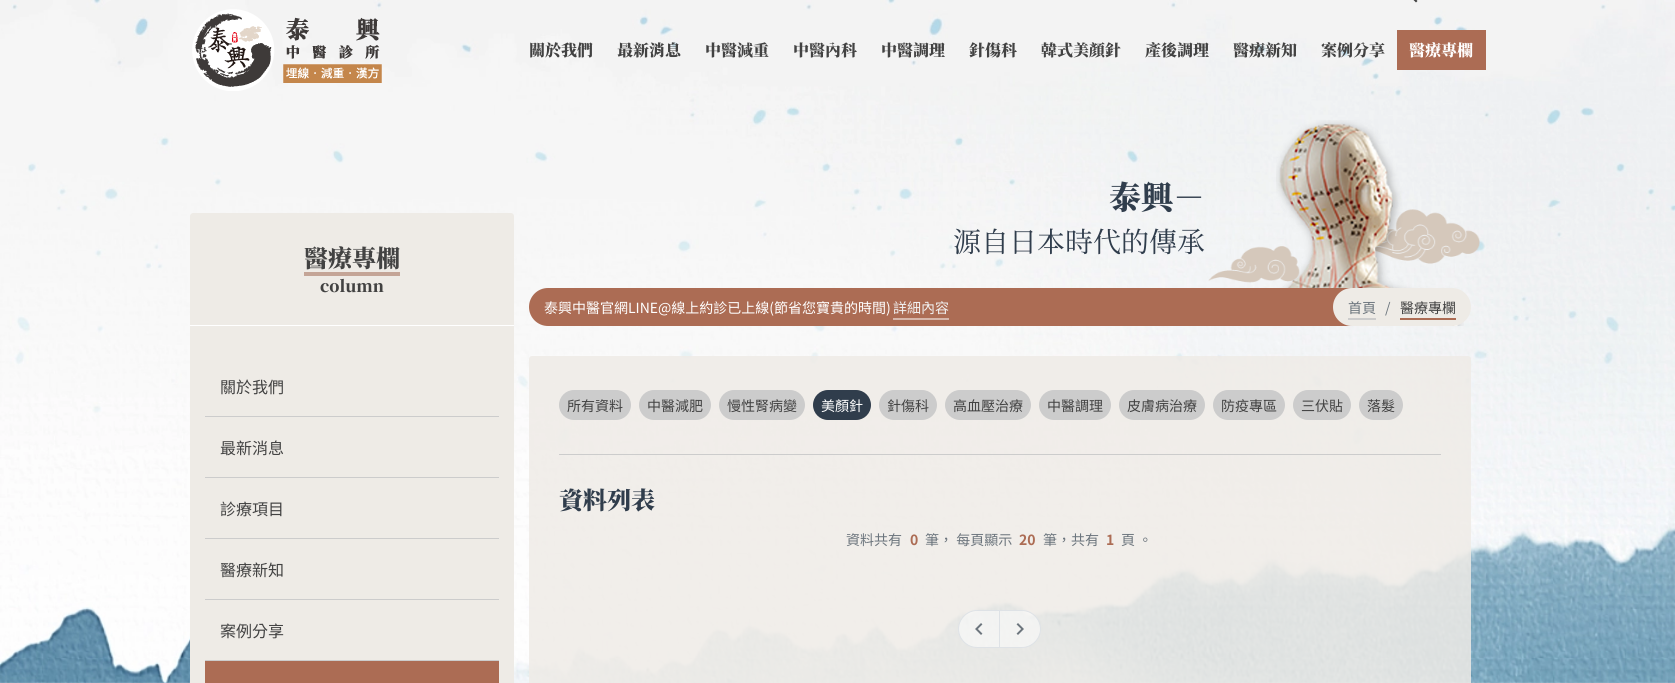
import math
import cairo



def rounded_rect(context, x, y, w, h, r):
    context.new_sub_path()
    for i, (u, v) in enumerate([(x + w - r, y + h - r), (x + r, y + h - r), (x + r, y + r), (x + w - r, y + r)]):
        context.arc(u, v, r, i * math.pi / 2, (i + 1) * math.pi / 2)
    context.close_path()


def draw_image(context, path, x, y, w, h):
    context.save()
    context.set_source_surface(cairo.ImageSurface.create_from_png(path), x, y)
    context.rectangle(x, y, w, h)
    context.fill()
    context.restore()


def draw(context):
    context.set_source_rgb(1, 1, 1)
    context.paint()
    draw_image(context, "images/1.png", 0, 0, 1675, 683)
    draw_image(context, "images/2.png", 1413, 0, 5, 3)
    draw_image(context, "images/3.png", 192, 9, 190, 82)
    context.set_source_rgb(172 / 255, 108 / 255, 84 / 255)
    context.rectangle(1397, 30, 89, 40)
    context.fill()
    draw_image(context, "images/6.png", 1374, 209, 106, 55)
    draw_image(context, "images/4.png", 1276, 120, 188, 206)
    draw_image(context, "images/5.png", 1208, 246, 92, 37)
    context.set_source_rgb(238 / 255, 235 / 255, 230 / 255)
    context.new_path()
    context.move_to(193, 213)
    context.line_to(511, 213)
    context.curve_to(512.5, 213, 514, 214.5, 514, 216)
    context.line_to(514, 326)
    context.line_to(190, 326)
    context.line_to(190, 216)
    context.curve_to(190, 214.5, 191.5, 213, 193, 213)
    context.close_path()
    context.fill()
    context.set_source_rgb(1, 1, 1)
    context.rectangle(190, 325, 324, 1)
    context.fill()
    context.set_source_rgb(196 / 255, 165 / 255, 151 / 255)
    context.rectangle(304, 272, 96, 4)
    context.fill()
    context.set_source_rgb(238 / 255, 235 / 255, 230 / 255)
    context.rectangle(190, 326, 324, 357)
    context.fill()
    context.set_source_rgb(204 / 255, 204 / 255, 204 / 255)
    context.rectangle(205, 416, 294, 1)
    context.fill()
    context.rectangle(205, 477, 294, 1)
    context.fill()
    context.rectangle(205, 538, 294, 1)
    context.fill()
    context.rectangle(205, 599, 294, 1)
    context.fill()
    context.rectangle(205, 660, 294, 1)
    context.fill()
    context.set_source_rgb(172 / 255, 108 / 255, 84 / 255)
    context.rectangle(205, 661, 294, 22)
    context.fill()
    rounded_rect(context, 529, 288, 838, 38, 19)
    context.fill()
    context.set_source_rgb(214 / 255, 182 / 255, 170 / 255)
    context.rectangle(893, 318, 56, 2)
    context.fill()
    context.set_source_rgb(238 / 255, 235 / 255, 230 / 255)
    rounded_rect(context, 1333, 288, 138, 38, 19)
    context.fill()
    context.set_source_rgb(204 / 255, 204 / 255, 204 / 255)
    context.rectangle(1348, 318, 28, 2)
    context.fill()
    context.set_source_rgb(172 / 255, 108 / 255, 84 / 255)
    context.rectangle(1400, 318, 56, 2)
    context.fill()
    context.set_source_rgba(238 / 255, 235 / 255, 230 / 255, 0.85)
    rounded_rect(context, 529, 356, 942, 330, 3)
    context.fill()
    context.set_source_rgb(204 / 255, 204 / 255, 204 / 255)
    context.rectangle(559, 454, 882, 1)
    context.fill()
    rounded_rect(context, 559, 390, 72, 30, 15)
    context.fill()
    rounded_rect(context, 639, 390, 72, 30, 15)
    context.fill()
    rounded_rect(context, 719, 390, 86, 30, 15)
    context.fill()
    context.set_source_rgb(48 / 255, 61 / 255, 76 / 255)
    rounded_rect(context, 813, 390, 58, 30, 15)
    context.fill()
    context.set_source_rgb(204 / 255, 204 / 255, 204 / 255)
    rounded_rect(context, 879, 390, 58, 30, 15)
    context.fill()
    rounded_rect(context, 945, 390, 86, 30, 15)
    context.fill()
    rounded_rect(context, 1039, 390, 72, 30, 15)
    context.fill()
    rounded_rect(context, 1119, 390, 86, 30, 15)
    context.fill()
    rounded_rect(context, 1213, 390, 72, 30, 15)
    context.fill()
    rounded_rect(context, 1293, 390, 58, 30, 15)
    context.fill()
    rounded_rect(context, 1359, 390, 44, 30, 15)
    context.fill()
    context.set_source_rgba(1, 1, 1, 0.5)
    context.new_path()
    context.move_to(977, 610.5)
    context.line_to(999.5, 610.5)
    context.line_to(999.5, 647.5)
    context.line_to(977, 647.5)
    context.curve_to(967, 647.5, 958.5, 639, 958.5, 629)
    context.curve_to(958.5, 619, 967, 610.5, 977, 610.5)
    context.close_path()
    context.fill_preserve()
    context.set_source_rgb(222 / 255, 226 / 255, 230 / 255)
    context.set_line_width(1)
    context.stroke()
    draw_image(context, "images/7.png", 975, 623, 8, 12)
    context.set_source_rgba(1, 1, 1, 0.5)
    context.new_path()
    context.move_to(999.5, 610.5)
    context.line_to(1022, 610.5)
    context.curve_to(1032, 610.5, 1040.5, 619, 1040.5, 629)
    context.curve_to(1040.5, 639, 1032, 647.5, 1022, 647.5)
    context.line_to(999.5, 647.5)
    context.close_path()
    context.fill_preserve()
    context.set_source_rgb(222 / 255, 226 / 255, 230 / 255)
    context.stroke()
    draw_image(context, "images/8.png", 1016, 623, 8, 12)
    context.select_font_face("Noto Serif TC Black")
    context.set_font_size(16)
    context.set_source_rgb(66 / 255, 66 / 255, 66 / 255)
    context.move_to(529, 56)
    context.show_text("關於我們")
    context.move_to(617, 56)
    context.show_text("最新消息")
    context.move_to(705, 56)
    context.show_text("中醫減重")
    context.move_to(793, 56)
    context.show_text("中醫內科")
    context.move_to(881, 56)
    context.show_text("中醫調理")
    context.move_to(969, 56)
    context.show_text("針傷科")
    context.move_to(1041, 56)
    context.show_text("韓式美顏針")
    context.move_to(1145, 56)
    context.show_text("產後調理")
    context.move_to(1233, 56)
    context.show_text("醫療新知")
    context.move_to(1321, 56)
    context.show_text("案例分享")
    context.set_source_rgb(1, 1, 1)
    context.move_to(1409, 56)
    context.show_text("醫療專欄")
    context.set_font_size(32)
    context.set_source_rgb(48 / 255, 61 / 255, 76 / 255)
    context.move_to(1109, 209)
    context.show_text("泰興")
    context.select_font_face("Noto Serif TC")
    context.move_to(1173, 209)
    context.show_text("－")
    context.set_font_size(28)
    context.move_to(953, 252)
    context.show_text("源自日本時代的傳承")
    context.select_font_face("Noto Serif TC Black")
    context.set_font_size(24)
    context.set_source_rgb(66 / 255, 66 / 255, 66 / 255)
    context.move_to(304, 267)
    context.show_text("醫療專欄")
    context.set_font_size(16)
    context.move_to(320, 292)
    context.show_text("column")
    context.select_font_face("Noto Sans TC")
    context.move_to(220, 393)
    context.show_text("關於我們")
    context.move_to(220, 454)
    context.show_text("最新消息")
    context.move_to(220, 515)
    context.show_text("診療項目")
    context.move_to(220, 576)
    context.show_text("醫療新知")
    context.move_to(220, 637)
    context.show_text("案例分享")
    context.set_font_size(14)
    context.set_source_rgb(1, 1, 1)
    context.move_to(544, 313)
    context.show_text("泰興中醫官網LINE@線上約診已上線(節省您寶貴的時間)")
    context.set_source_rgb(241 / 255, 241 / 255, 241 / 255)
    context.move_to(893, 313)
    context.show_text("詳細內容")
    context.set_source_rgb(108 / 255, 117 / 255, 125 / 255)
    context.move_to(1348, 313)
    context.show_text("首頁")
    context.move_to(1385, 313)
    context.show_text("/")
    context.set_source_rgb(66 / 255, 66 / 255, 66 / 255)
    context.move_to(1400, 313)
    context.show_text("醫療專欄")
    context.move_to(567, 411)
    context.show_text("所有資料")
    context.move_to(647, 411)
    context.show_text("中醫減肥")
    context.move_to(727, 411)
    context.show_text("慢性腎病變")
    context.set_source_rgb(1, 1, 1)
    context.move_to(821, 411)
    context.show_text("美顏針")
    context.set_source_rgb(66 / 255, 66 / 255, 66 / 255)
    context.move_to(887, 411)
    context.show_text("針傷科")
    context.move_to(953, 411)
    context.show_text("高血壓治療")
    context.move_to(1047, 411)
    context.show_text("中醫調理")
    context.move_to(1127, 411)
    context.show_text("皮膚病治療")
    context.move_to(1221, 411)
    context.show_text("防疫專區")
    context.move_to(1301, 411)
    context.show_text("三伏貼")
    context.move_to(1367, 411)
    context.show_text("落髮")
    context.select_font_face("Noto Serif TC Black")
    context.set_font_size(24)
    context.set_source_rgb(48 / 255, 61 / 255, 76 / 255)
    context.move_to(559, 509)
    context.show_text("資料列表")
    context.select_font_face("Noto Sans TC")
    context.set_font_size(14)
    context.set_source_rgb(108 / 255, 117 / 255, 125 / 255)
    context.move_to(846, 545)
    context.show_text("資料共有")
    context.select_font_face("Noto Sans TC", cairo.FontSlant.NORMAL, cairo.FontWeight.BOLD)
    context.set_source_rgb(172 / 255, 108 / 255, 84 / 255)
    context.move_to(910, 545)
    context.show_text("0")
    context.select_font_face("Noto Sans TC")
    context.set_source_rgb(108 / 255, 117 / 255, 125 / 255)
    context.move_to(925, 545)
    context.show_text("筆， 每頁顯示")
    context.select_font_face("Noto Sans TC", cairo.FontSlant.NORMAL, cairo.FontWeight.BOLD)
    context.set_source_rgb(172 / 255, 108 / 255, 84 / 255)
    context.move_to(1019, 545)
    context.show_text("20")
    context.select_font_face("Noto Sans TC")
    context.set_source_rgb(108 / 255, 117 / 255, 125 / 255)
    context.move_to(1043, 545)
    context.show_text("筆，共有")
    context.select_font_face("Noto Sans TC", cairo.FontSlant.NORMAL, cairo.FontWeight.BOLD)
    context.set_source_rgb(172 / 255, 108 / 255, 84 / 255)
    context.move_to(1106, 545)
    context.show_text("1")
    context.select_font_face("Noto Sans TC")
    context.set_source_rgb(108 / 255, 117 / 255, 125 / 255)
    context.move_to(1121, 545)
    context.show_text("頁 。")


surface = cairo.ImageSurface(cairo.Format.RGB24, 1675, 683)
context = cairo.Context(surface)
options = cairo.FontOptions()
options.set_hint_metrics(cairo.HintMetrics.OFF)
options.set_hint_style(cairo.HintStyle.NONE)
context.set_font_options(options)
context.set_miter_limit(4)
draw(context)
surface.write_to_png("out.png")
